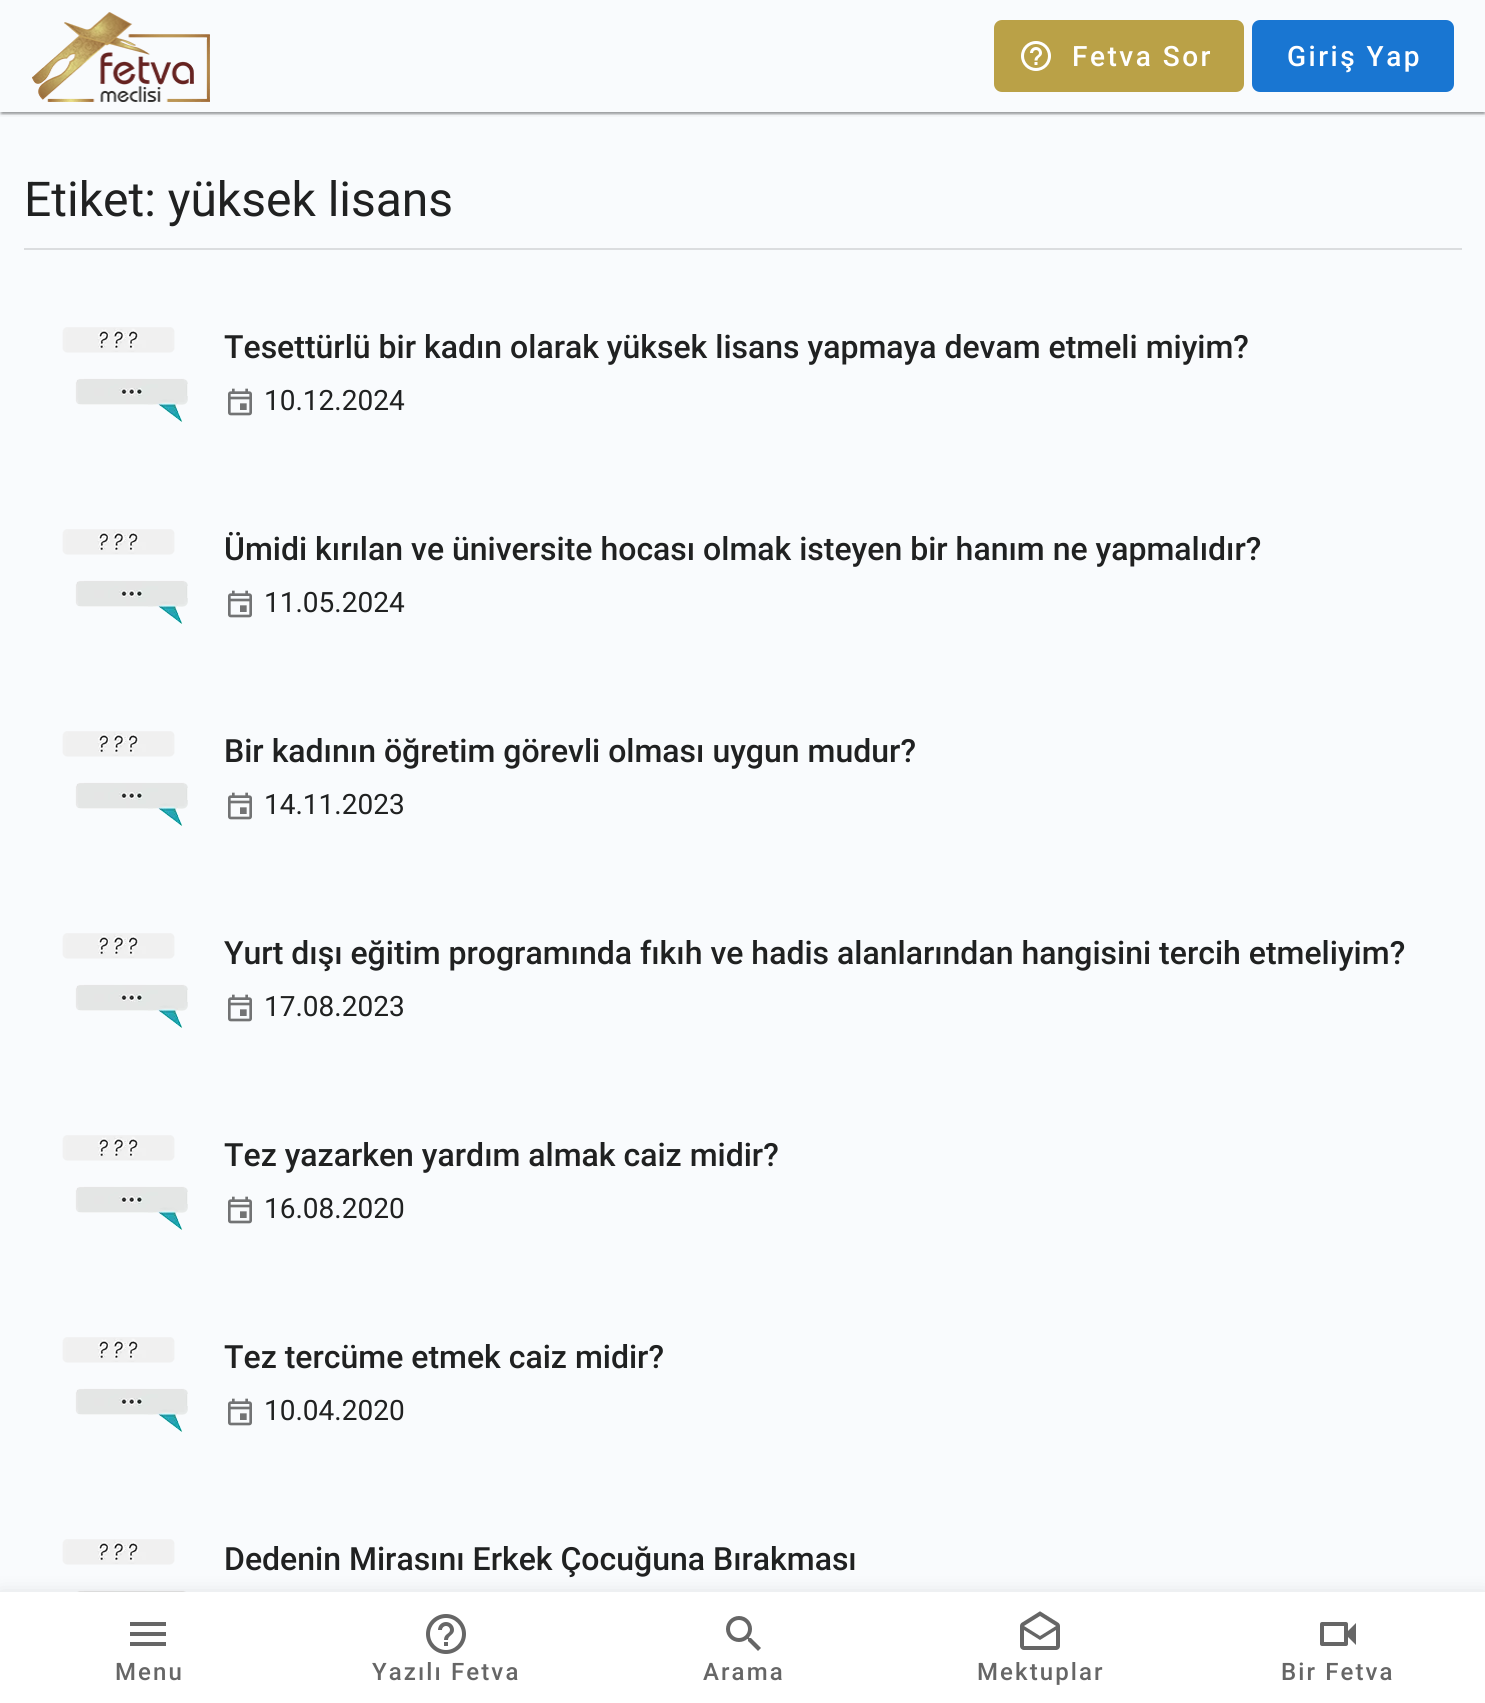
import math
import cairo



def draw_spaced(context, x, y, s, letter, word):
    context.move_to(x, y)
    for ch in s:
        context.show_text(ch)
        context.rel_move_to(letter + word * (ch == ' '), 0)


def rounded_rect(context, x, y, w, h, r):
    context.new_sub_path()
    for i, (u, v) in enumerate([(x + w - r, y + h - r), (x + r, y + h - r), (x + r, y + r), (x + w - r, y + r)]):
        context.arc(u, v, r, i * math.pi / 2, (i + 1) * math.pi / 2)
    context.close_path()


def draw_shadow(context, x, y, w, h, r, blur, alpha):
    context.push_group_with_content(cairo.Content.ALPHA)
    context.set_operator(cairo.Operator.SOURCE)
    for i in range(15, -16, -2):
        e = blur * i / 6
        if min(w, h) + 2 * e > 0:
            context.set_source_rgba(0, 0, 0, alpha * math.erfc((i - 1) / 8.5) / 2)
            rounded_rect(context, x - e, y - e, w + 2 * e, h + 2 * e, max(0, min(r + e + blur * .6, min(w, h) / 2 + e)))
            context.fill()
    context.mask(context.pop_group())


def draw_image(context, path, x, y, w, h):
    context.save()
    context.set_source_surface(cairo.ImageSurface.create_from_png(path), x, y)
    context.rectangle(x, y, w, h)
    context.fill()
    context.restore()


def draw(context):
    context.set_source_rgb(249 / 255, 251 / 255, 253 / 255)
    context.paint()
    context.save()
    context.rectangle(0, 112, 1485, 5)
    context.clip()
    context.set_source_rgb(0, 0, 0)
    draw_shadow(context, 0, 2, 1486, 112, 0, 3, 0.12)
    context.restore()
    context.save()
    context.rectangle(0, 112, 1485, 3)
    context.clip()
    context.set_source_rgb(0, 0, 0)
    draw_shadow(context, 0, 2, 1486, 112, 0, 1, 0.14)
    context.restore()
    context.save()
    context.rectangle(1, 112, 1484, 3)
    context.clip()
    context.set_source_rgb(0, 0, 0)
    draw_shadow(context, 2, 6, 1482, 108, 0, 1, 0.2)
    context.restore()
    draw_image(context, "images/1.png", 32, 12, 178, 90)
    context.set_source_rgb(186 / 255, 161 / 255, 71 / 255)
    rounded_rect(context, 994, 20, 250, 72, 8)
    context.fill()
    draw_image(context, "images/2.png", 1021, 41, 30, 30)
    context.set_source_rgb(25 / 255, 118 / 255, 210 / 255)
    rounded_rect(context, 1252, 20, 202, 72, 8)
    context.fill()
    context.set_source_rgb(219 / 255, 221 / 255, 223 / 255)
    context.rectangle(24, 248, 1438, 2)
    context.fill()
    draw_image(context, "images/3.png", 62, 327, 126, 95)
    draw_image(context, "images/4.png", 228, 388, 24, 28)
    draw_image(context, "images/3.png", 62, 529, 126, 95)
    draw_image(context, "images/4.png", 228, 590, 24, 28)
    draw_image(context, "images/3.png", 62, 731, 126, 95)
    draw_image(context, "images/4.png", 228, 792, 24, 28)
    draw_image(context, "images/3.png", 62, 933, 126, 95)
    draw_image(context, "images/4.png", 228, 994, 24, 28)
    draw_image(context, "images/3.png", 62, 1135, 126, 95)
    draw_image(context, "images/4.png", 228, 1196, 24, 28)
    draw_image(context, "images/3.png", 62, 1337, 126, 95)
    draw_image(context, "images/4.png", 228, 1398, 24, 28)
    draw_image(context, "images/5.png", 62, 1539, 124, 53)
    context.set_source_rgb(0, 0, 0)
    draw_shadow(context, 0, 1594, 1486, 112, 0, 10, 0.12)
    context.set_source_rgb(1, 1, 1)
    context.rectangle(0, 1592, 1485, 111)
    context.fill()
    draw_image(context, "images/6.png", 130, 1622, 36, 24)
    draw_image(context, "images/7.png", 426, 1614, 40, 40)
    draw_image(context, "images/8.png", 726, 1616, 35, 35)
    draw_image(context, "images/9.png", 1020, 1611, 40, 39)
    draw_image(context, "images/10.png", 1320, 1622, 36, 24)
    context.select_font_face("Roboto Medium")
    context.set_font_size(28)
    draw_spaced(context, 1072, 66, "Fetva Sor", 2.5, 0)
    draw_spaced(context, 1287, 66, "Giriş Yap", 2.5, 0)
    context.select_font_face("Roboto")
    context.set_font_size(48)
    context.set_source_rgb(32 / 255, 33 / 255, 33 / 255)
    context.move_to(24, 216)
    context.show_text("Etiket: yüksek lisans")
    context.select_font_face("Roboto Medium")
    context.set_font_size(32)
    context.move_to(224, 358)
    context.show_text("Tesettürlü bir kadın olarak yüksek lisans yapmaya devam etmeli miyim?")
    context.select_font_face("Roboto")
    context.set_font_size(28)
    context.move_to(264, 410)
    context.show_text("10.12.2024")
    context.select_font_face("Roboto Medium")
    context.set_font_size(32)
    context.move_to(224, 560)
    context.show_text("Ümidi kırılan ve üniversite hocası olmak isteyen bir hanım ne yapmalıdır?")
    context.select_font_face("Roboto")
    context.set_font_size(28)
    context.move_to(264, 612)
    context.show_text("11.05.2024")
    context.select_font_face("Roboto Medium")
    context.set_font_size(32)
    context.move_to(224, 762)
    context.show_text("Bir kadının öğretim görevli olması uygun mudur?")
    context.select_font_face("Roboto")
    context.set_font_size(28)
    context.move_to(264, 814)
    context.show_text("14.11.2023")
    context.select_font_face("Roboto Medium")
    context.set_font_size(32)
    context.move_to(224, 964)
    context.show_text("Yurt dışı eğitim programında fıkıh ve hadis alanlarından hangisini tercih etmeliyim?")
    context.select_font_face("Roboto")
    context.set_font_size(28)
    context.move_to(264, 1016)
    context.show_text("17.08.2023")
    context.select_font_face("Roboto Medium")
    context.set_font_size(32)
    context.move_to(224, 1166)
    context.show_text("Tez yazarken yardım almak caiz midir?")
    context.select_font_face("Roboto")
    context.set_font_size(28)
    context.move_to(264, 1218)
    context.show_text("16.08.2020")
    context.select_font_face("Roboto Medium")
    context.set_font_size(32)
    context.move_to(224, 1368)
    context.show_text("Tez tercüme etmek caiz midir?")
    context.select_font_face("Roboto")
    context.set_font_size(28)
    context.move_to(264, 1420)
    context.show_text("10.04.2020")
    context.select_font_face("Roboto Medium")
    context.set_font_size(32)
    context.move_to(224, 1570)
    context.show_text("Dedenin Mirasını Erkek Çocuğuna Bırakması")
    context.set_font_size(24)
    context.set_source_rgb(102 / 255, 102 / 255, 102 / 255)
    draw_spaced(context, 115, 1680, "Menu", 2.1, 0)
    draw_spaced(context, 372, 1680, "Yazılı Fetva", 2.1, 0)
    draw_spaced(context, 703, 1680, "Arama", 2.1, 0)
    draw_spaced(context, 977, 1680, "Mektuplar", 2.1, 0)
    draw_spaced(context, 1281, 1680, "Bir Fetva", 2.1, 0)


surface = cairo.ImageSurface(cairo.Format.RGB24, 1485, 1703)
context = cairo.Context(surface)
options = cairo.FontOptions()
options.set_hint_metrics(cairo.HintMetrics.OFF)
options.set_hint_style(cairo.HintStyle.NONE)
context.set_font_options(options)
context.set_miter_limit(4)
draw(context)
surface.write_to_png("out.png")
